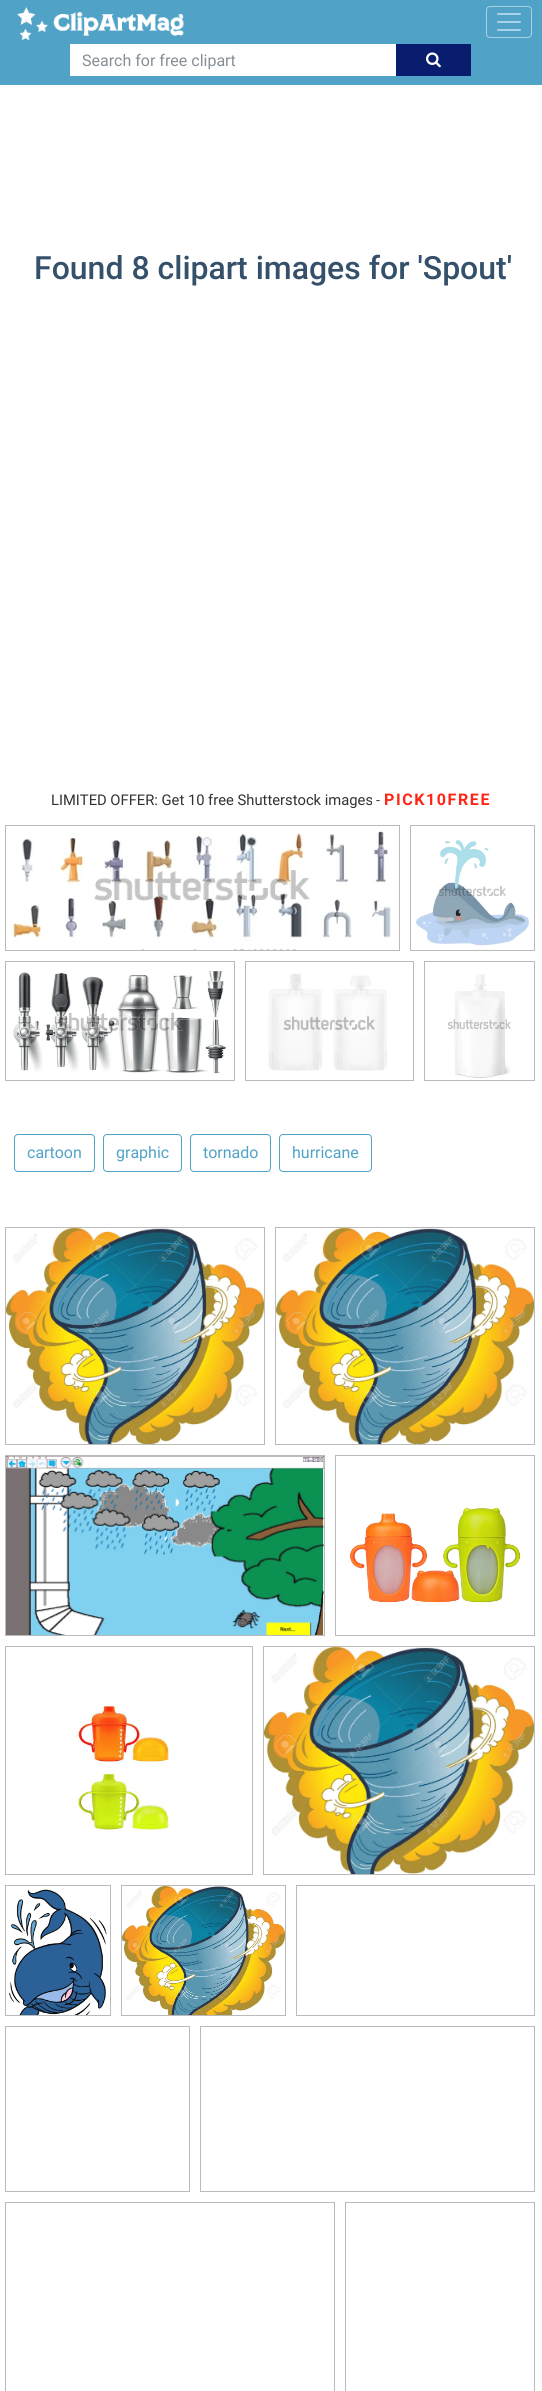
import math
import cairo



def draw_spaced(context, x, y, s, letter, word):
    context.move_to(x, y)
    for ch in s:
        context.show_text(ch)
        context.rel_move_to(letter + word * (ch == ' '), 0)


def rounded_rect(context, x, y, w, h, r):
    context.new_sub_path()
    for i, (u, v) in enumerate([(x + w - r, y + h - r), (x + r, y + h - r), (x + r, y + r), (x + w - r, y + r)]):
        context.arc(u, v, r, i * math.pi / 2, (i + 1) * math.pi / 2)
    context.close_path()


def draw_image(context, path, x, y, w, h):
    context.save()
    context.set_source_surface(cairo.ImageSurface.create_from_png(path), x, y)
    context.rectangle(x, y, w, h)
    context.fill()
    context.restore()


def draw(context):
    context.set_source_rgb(1, 1, 1)
    context.paint()
    context.set_source_rgb(80 / 255, 163 / 255, 199 / 255)
    context.rectangle(0, 0, 542, 85)
    context.fill()
    rounded_rect(context, 486.5, 6.5, 45, 31, 3.5)
    context.set_source_rgb(168 / 255, 209 / 255, 227 / 255)
    context.set_line_width(1)
    context.stroke()
    draw_image(context, "images/1.png", 497, 13, 24, 18)
    draw_image(context, "images/2.png", 17, 7, 167, 34)
    context.set_source_rgb(1, 1, 1)
    context.rectangle(70, 44, 326, 32)
    context.fill()
    context.set_source_rgb(9 / 255, 29 / 255, 110 / 255)
    context.rectangle(396, 44, 75, 32)
    context.fill()
    draw_image(context, "images/3.png", 426, 52, 15, 16)
    context.rectangle(5.5, 825.5, 394, 125)
    context.set_source_rgb(186 / 255, 186 / 255, 186 / 255)
    context.stroke()
    draw_image(context, "images/4.png", 12, 831, 379, 119)
    context.rectangle(410.5, 825.5, 124, 125)
    context.stroke()
    draw_image(context, "images/5.png", 416, 840, 113, 106)
    context.rectangle(5.5, 961.5, 229, 119)
    context.stroke()
    draw_image(context, "images/6.png", 12, 970, 214, 104)
    context.rectangle(245.5, 961.5, 168, 119)
    context.stroke()
    draw_image(context, "images/7.png", 268, 973, 119, 98)
    context.rectangle(424.5, 961.5, 110, 119)
    context.stroke()
    draw_image(context, "images/8.png", 447, 974, 64, 104)
    rounded_rect(context, 14.5, 1134.5, 80, 37, 3.5)
    context.set_source_rgb(80 / 255, 163 / 255, 199 / 255)
    context.stroke()
    rounded_rect(context, 103.5, 1134.5, 78, 37, 3.5)
    context.stroke()
    rounded_rect(context, 190.5, 1134.5, 80, 37, 3.5)
    context.stroke()
    rounded_rect(context, 279.5, 1134.5, 92, 37, 3.5)
    context.stroke()
    context.set_source_rgb(186 / 255, 186 / 255, 186 / 255)
    context.rectangle(5, 1444, 260, 1)
    context.fill()
    context.rectangle(5, 1227, 260, 1)
    context.fill()
    context.rectangle(264, 1227, 1, 217)
    context.fill()
    context.rectangle(5, 1227, 1, 217)
    context.fill()
    draw_image(context, "images/9.png", 6, 1228, 258, 216)
    context.rectangle(275, 1444, 260, 1)
    context.fill()
    context.rectangle(275, 1227, 260, 1)
    context.fill()
    context.rectangle(534, 1227, 1, 217)
    context.fill()
    context.rectangle(275, 1227, 1, 217)
    context.fill()
    draw_image(context, "images/10.png", 276, 1228, 258, 216)
    context.rectangle(5, 1635, 320, 1)
    context.fill()
    context.rectangle(5, 1455, 320, 1)
    context.fill()
    context.rectangle(324, 1455, 1, 180)
    context.fill()
    context.rectangle(5, 1455, 1, 180)
    context.fill()
    draw_image(context, "images/11.png", 6, 1456, 318, 179)
    context.rectangle(335, 1635, 200, 1)
    context.fill()
    context.rectangle(335, 1455, 200, 1)
    context.fill()
    context.rectangle(534, 1455, 1, 180)
    context.fill()
    context.rectangle(335, 1455, 1, 180)
    context.fill()
    draw_image(context, "images/12.png", 349, 1507, 172, 96)
    context.rectangle(5, 1874, 248, 1)
    context.fill()
    context.rectangle(5, 1646, 248, 1)
    context.fill()
    context.rectangle(252, 1646, 1, 228)
    context.fill()
    context.rectangle(5, 1646, 1, 228)
    context.fill()
    draw_image(context, "images/13.png", 76, 1705, 94, 129)
    context.rectangle(263, 1874, 272, 1)
    context.fill()
    context.rectangle(263, 1646, 272, 1)
    context.fill()
    context.rectangle(534, 1646, 1, 228)
    context.fill()
    context.rectangle(263, 1646, 1, 228)
    context.fill()
    draw_image(context, "images/14.png", 264, 1647, 270, 227)
    context.rectangle(5, 2015, 106, 1)
    context.fill()
    context.rectangle(5, 1885, 106, 1)
    context.fill()
    context.rectangle(110, 1885, 1, 130)
    context.fill()
    context.rectangle(5, 1885, 1, 130)
    context.fill()
    draw_image(context, "images/15.png", 9, 1889, 98, 126)
    context.rectangle(121, 2015, 165, 1)
    context.fill()
    context.rectangle(121, 1885, 165, 1)
    context.fill()
    context.rectangle(285, 1885, 1, 130)
    context.fill()
    context.rectangle(121, 1885, 1, 130)
    context.fill()
    draw_image(context, "images/16.png", 122, 1886, 163, 129)
    context.rectangle(296, 2015, 239, 1)
    context.fill()
    context.rectangle(296, 1885, 239, 1)
    context.fill()
    context.rectangle(534, 1885, 1, 130)
    context.fill()
    context.rectangle(296, 1885, 1, 130)
    context.fill()
    context.rectangle(5, 2191, 185, 1)
    context.fill()
    context.rectangle(5, 2026, 185, 1)
    context.fill()
    context.rectangle(189, 2026, 1, 165)
    context.fill()
    context.rectangle(5, 2026, 1, 165)
    context.fill()
    context.rectangle(200, 2191, 335, 1)
    context.fill()
    context.rectangle(200, 2026, 335, 1)
    context.fill()
    context.rectangle(534, 2026, 1, 165)
    context.fill()
    context.rectangle(200, 2026, 1, 165)
    context.fill()
    context.rectangle(5, 2202, 330, 1)
    context.fill()
    context.rectangle(334, 2202, 1, 189)
    context.fill()
    context.rectangle(5, 2202, 1, 189)
    context.fill()
    context.rectangle(345, 2202, 190, 1)
    context.fill()
    context.rectangle(534, 2202, 1, 189)
    context.fill()
    context.rectangle(345, 2202, 1, 189)
    context.fill()
    context.select_font_face("Roboto")
    context.set_font_size(16)
    context.set_source_rgb(134 / 255, 142 / 255, 150 / 255)
    context.move_to(82, 66)
    context.show_text("Search for free clipart")
    context.select_font_face("Roboto Medium")
    context.set_font_size(32)
    context.set_source_rgb(52 / 255, 80 / 255, 107 / 255)
    context.move_to(34, 279)
    context.show_text("Found 8 clipart images for 'Spout'")
    context.select_font_face("Roboto")
    context.set_font_size(14.75)
    context.set_source_rgb(50 / 255, 50 / 255, 50 / 255)
    context.move_to(51, 805)
    context.show_text("LIMITED OFFER: Get 10 free Shutterstock images")
    context.set_source_rgb(52 / 255, 80 / 255, 107 / 255)
    context.move_to(376, 805)
    context.show_text("-")
    context.select_font_face("Roboto", cairo.FontSlant.NORMAL, cairo.FontWeight.BOLD)
    context.set_font_size(16)
    context.set_source_rgb(1, 36 / 255, 20 / 255)
    draw_spaced(context, 384, 805, "PICK10FREE", 1.6, 0)
    context.select_font_face("Roboto")
    context.set_source_rgb(80 / 255, 163 / 255, 199 / 255)
    context.move_to(27, 1158)
    context.show_text("cartoon")
    context.move_to(116, 1158)
    context.show_text("graphic")
    context.move_to(203, 1158)
    context.show_text("tornado")
    context.move_to(292, 1158)
    context.show_text("hurricane")


surface = cairo.ImageSurface(cairo.Format.RGB24, 542, 2391)
context = cairo.Context(surface)
options = cairo.FontOptions()
options.set_hint_metrics(cairo.HintMetrics.OFF)
options.set_hint_style(cairo.HintStyle.NONE)
context.set_font_options(options)
context.set_miter_limit(4)
draw(context)
surface.write_to_png("out.png")
